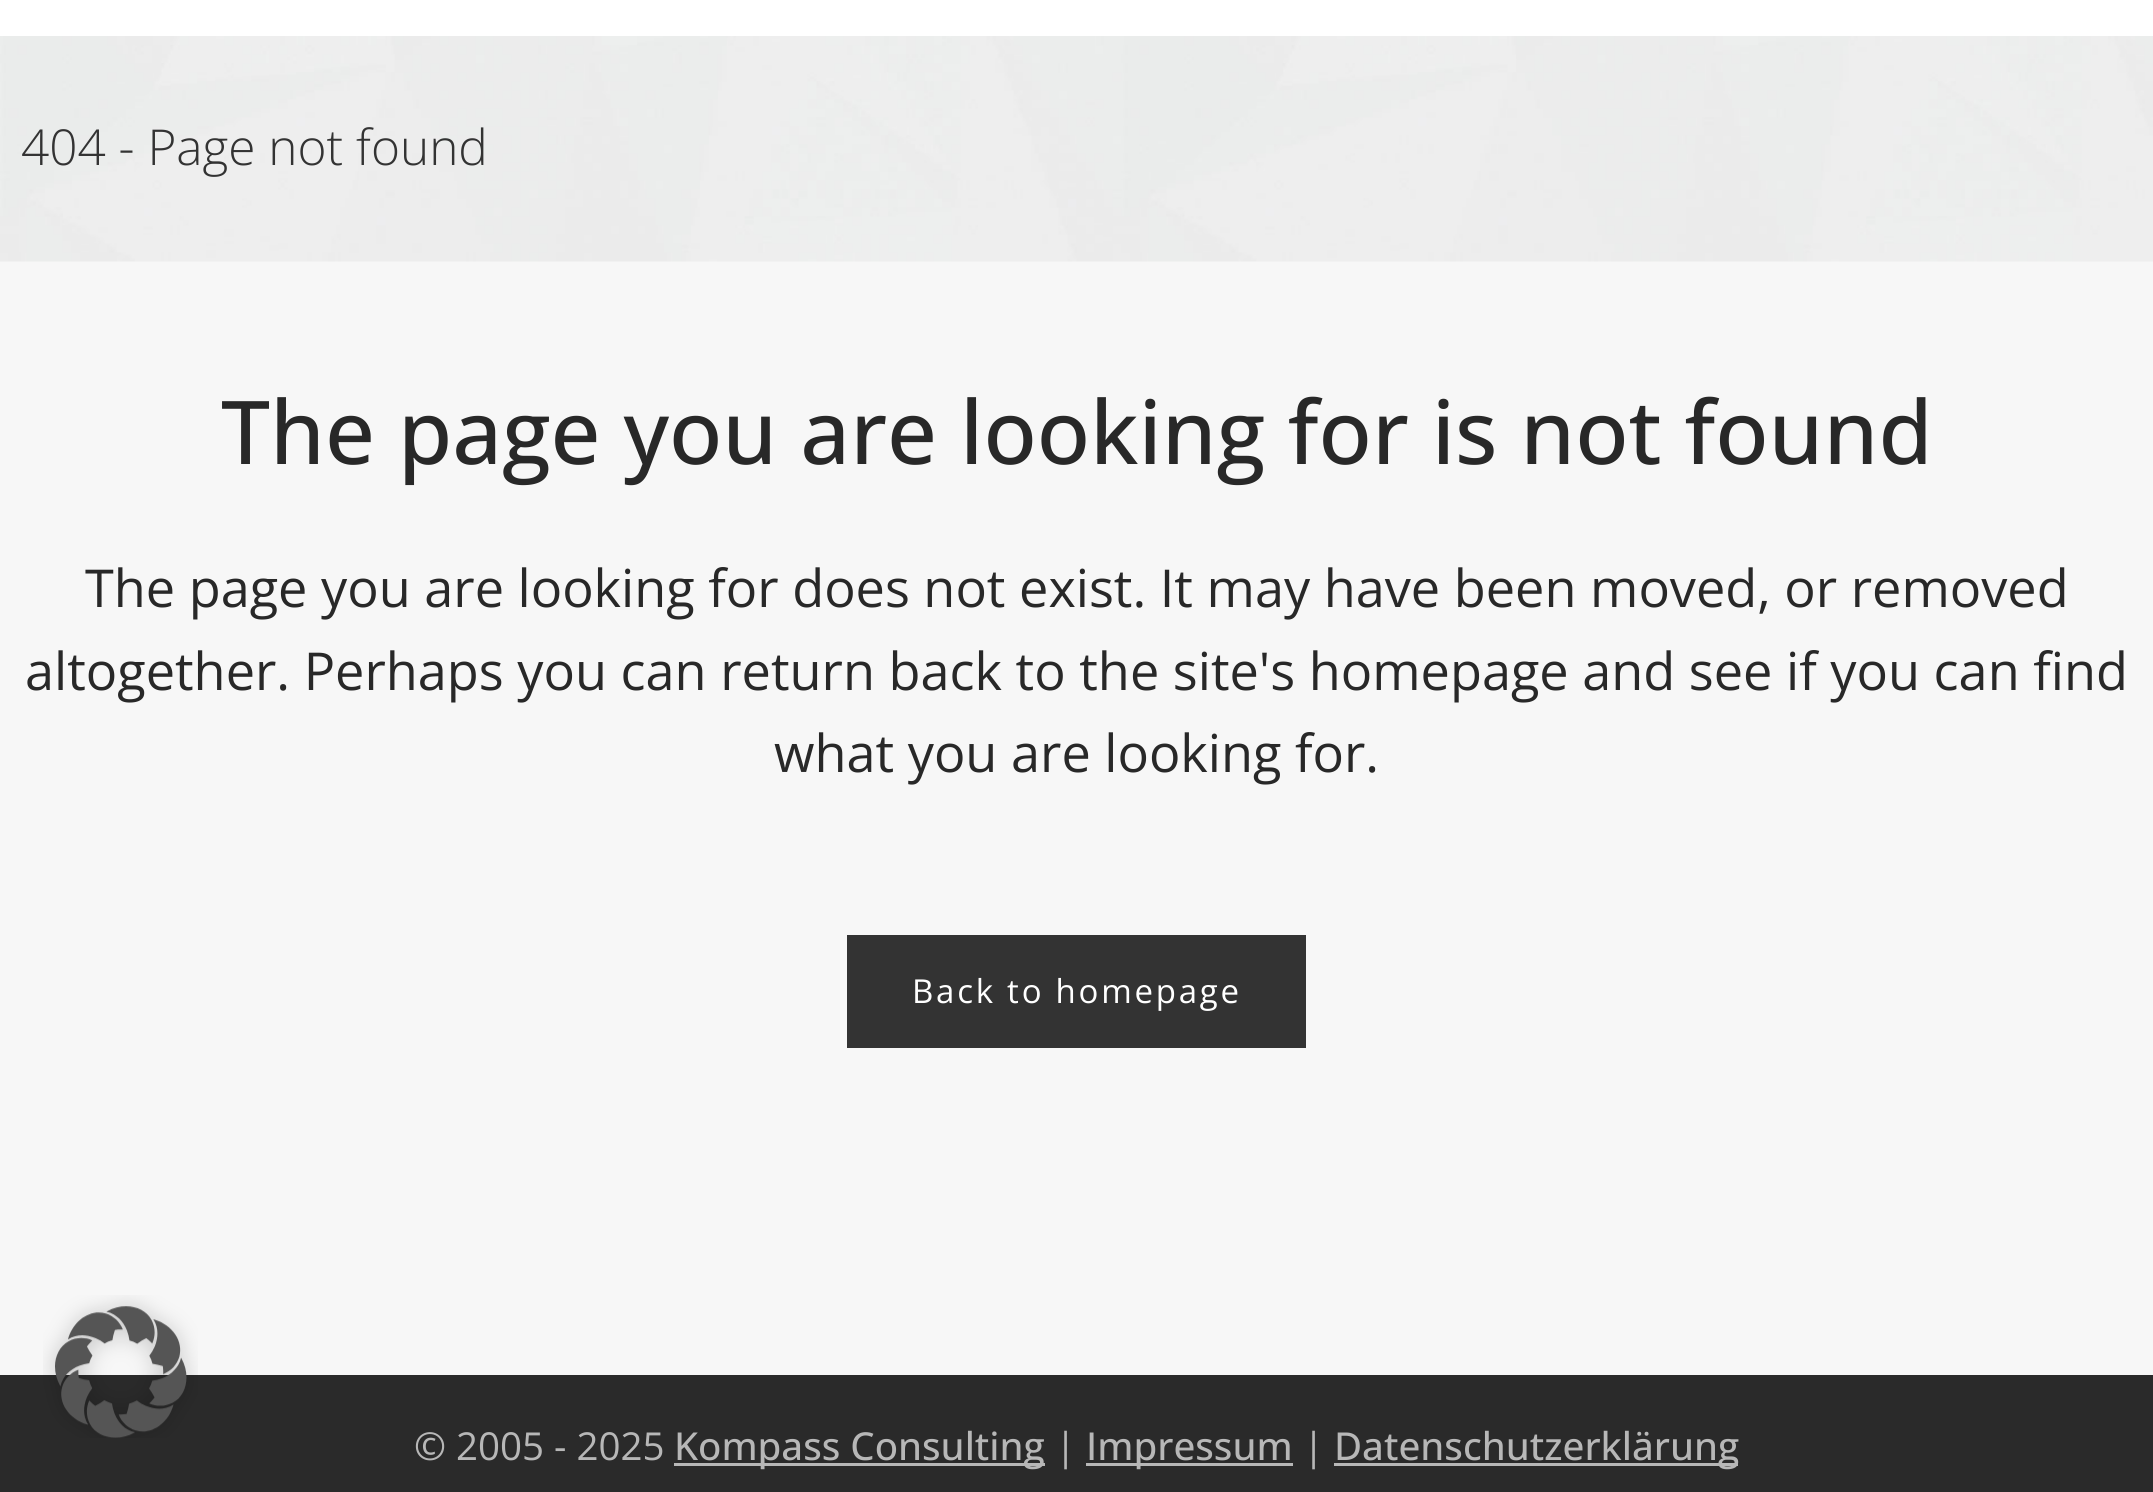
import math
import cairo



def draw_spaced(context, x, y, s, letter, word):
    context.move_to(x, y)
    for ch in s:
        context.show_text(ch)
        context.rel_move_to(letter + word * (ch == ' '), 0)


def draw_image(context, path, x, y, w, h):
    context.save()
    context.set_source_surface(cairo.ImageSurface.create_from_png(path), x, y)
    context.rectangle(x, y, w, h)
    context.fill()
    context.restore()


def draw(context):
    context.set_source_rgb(247 / 255, 247 / 255, 247 / 255)
    context.paint()
    context.set_source_rgb(1, 1, 1)
    context.rectangle(0, 0, 2153, 36)
    context.fill()
    draw_image(context, "images/1.png", 0, 36, 2153, 226)
    context.set_source_rgb(51 / 255, 51 / 255, 51 / 255)
    context.rectangle(847, 935, 459, 113)
    context.fill()
    context.set_source_rgb(42 / 255, 42 / 255, 42 / 255)
    context.rectangle(0, 1375, 2153, 117)
    context.fill()
    context.set_source_rgb(183 / 255, 183 / 255, 183 / 255)
    context.rectangle(674, 1463, 371, 3)
    context.fill()
    context.rectangle(1086, 1463, 207, 3)
    context.fill()
    context.rectangle(1334, 1463, 404, 3)
    context.fill()
    draw_image(context, "images/2.png", 43, 1295, 155, 143)
    context.select_font_face("Open Sans Light")
    context.set_font_size(49.5)
    context.set_source_rgb(51 / 255, 51 / 255, 51 / 255)
    context.move_to(21, 165)
    context.show_text("404 - Page not found")
    context.select_font_face("Open Sans Medium")
    context.set_font_size(88)
    context.set_source_rgb(40 / 255, 40 / 255, 40 / 255)
    context.move_to(221, 464)
    context.show_text("The page you are looking for is not found")
    context.select_font_face("Open Sans")
    context.set_font_size(52.25)
    context.move_to(85, 607)
    context.show_text("The page you are looking for does not exist. It may have been moved, or removed")
    context.move_to(25, 690)
    context.show_text("altogether. Perhaps you can return back to the site's homepage and see if you can find")
    context.move_to(774, 772)
    context.show_text("what you are looking for.")
    context.set_font_size(33)
    context.set_source_rgb(1, 1, 1)
    draw_spaced(context, 912, 1003, "Back to homepage", 2.75, 0)
    context.set_font_size(38.5)
    context.set_source_rgb(183 / 255, 183 / 255, 183 / 255)
    context.move_to(414, 1460)
    context.show_text("© 2005 - 2025")
    context.select_font_face("Open Sans Medium")
    context.move_to(674, 1460)
    context.show_text("Kompass Consulting")
    context.select_font_face("Open Sans")
    context.move_to(1055, 1460)
    context.show_text("|")
    context.select_font_face("Open Sans Medium")
    context.move_to(1086, 1460)
    context.show_text("Impressum")
    context.select_font_face("Open Sans")
    context.move_to(1303, 1460)
    context.show_text("|")
    context.select_font_face("Open Sans Medium")
    context.move_to(1334, 1460)
    context.show_text("Datenschutzerklärung")


surface = cairo.ImageSurface(cairo.Format.RGB24, 2153, 1492)
context = cairo.Context(surface)
options = cairo.FontOptions()
options.set_hint_metrics(cairo.HintMetrics.OFF)
options.set_hint_style(cairo.HintStyle.NONE)
context.set_font_options(options)
context.set_miter_limit(4)
draw(context)
surface.write_to_png("out.png")
